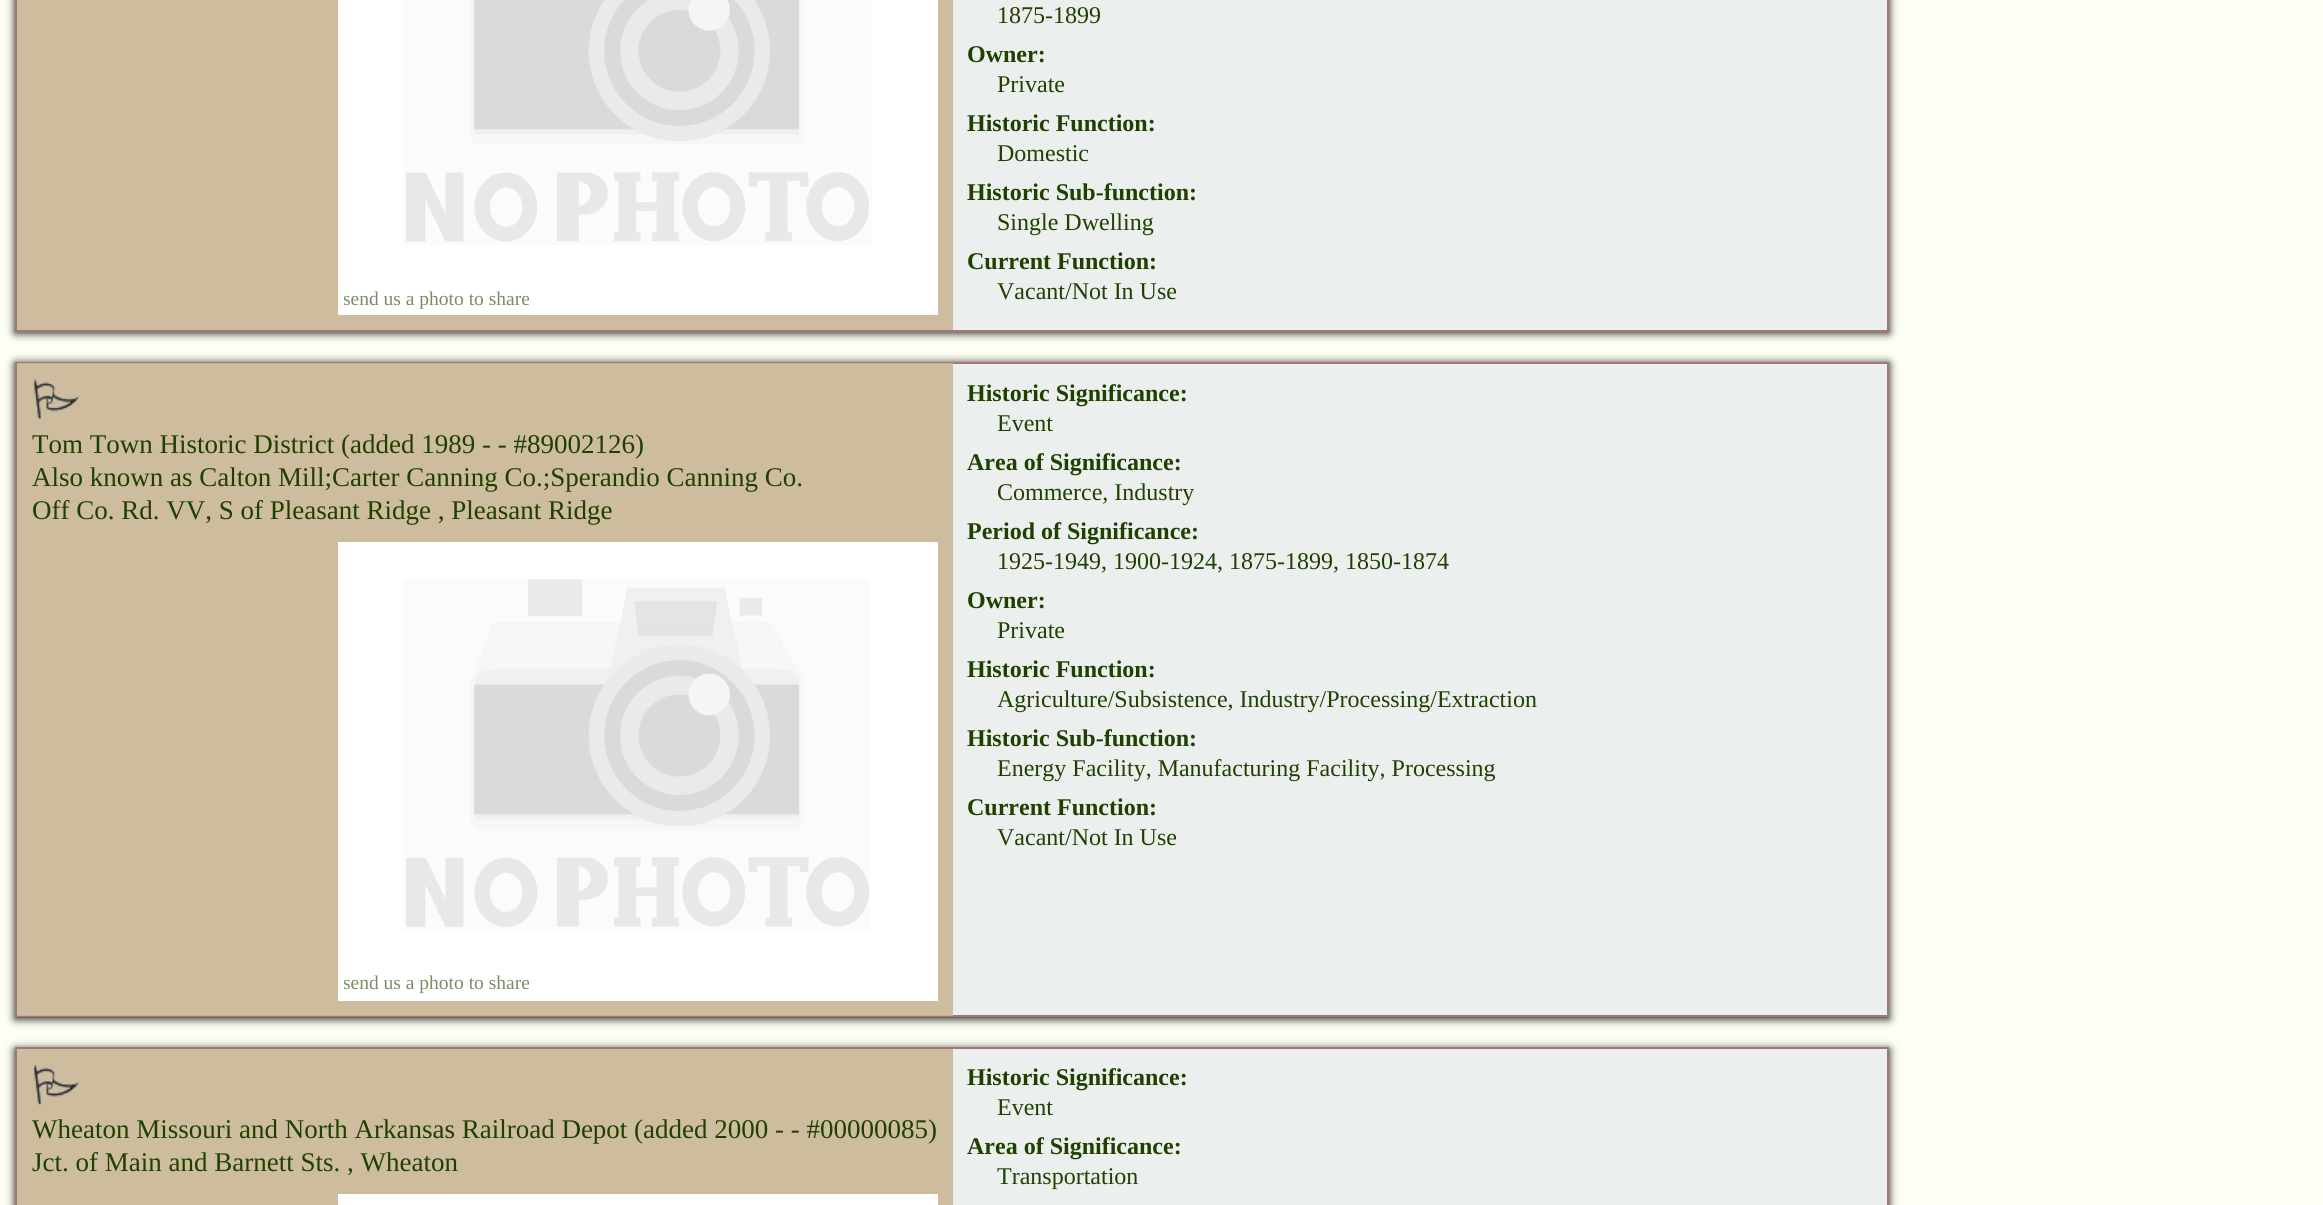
import math
import cairo



def rounded_rect(context, x, y, w, h, r):
    context.new_sub_path()
    for i, (u, v) in enumerate([(x + w - r, y + h - r), (x + r, y + h - r), (x + r, y + r), (x + w - r, y + r)]):
        context.arc(u, v, r, i * math.pi / 2, (i + 1) * math.pi / 2)
    context.close_path()


def draw_shadow(context, x, y, w, h, r, blur, alpha):
    context.push_group_with_content(cairo.Content.ALPHA)
    context.set_operator(cairo.Operator.SOURCE)
    for i in range(15, -16, -2):
        e = blur * i / 6
        if min(w, h) + 2 * e > 0:
            context.set_source_rgba(0, 0, 0, alpha * math.erfc((i - 1) / 8.5) / 2)
            rounded_rect(context, x - e, y - e, w + 2 * e, h + 2 * e, max(0, min(r + e + blur * .6, min(w, h) / 2 + e)))
            context.fill()
    context.mask(context.pop_group())


def draw_image(context, path, x, y, w, h):
    context.save()
    context.set_source_surface(cairo.ImageSurface.create_from_png(path), x, y)
    context.rectangle(x, y, w, h)
    context.fill()
    context.restore()


def draw(context):
    context.set_source_rgb(254 / 255, 1, 244 / 255)
    context.paint()
    context.save()
    context.set_fill_rule(cairo.FillRule.EVEN_ODD)
    context.new_path()
    context.move_to(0, 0)
    context.line_to(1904, 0)
    context.line_to(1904, 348)
    context.line_to(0, 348)
    context.close_path()
    context.move_to(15, -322)
    context.line_to(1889, -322)
    context.line_to(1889, 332)
    context.line_to(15, 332)
    context.close_path()
    context.clip()
    context.set_source_rgb(28 / 255, 26 / 255, 26 / 255)
    draw_shadow(context, 15, -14, 1874, 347, 0, 4.5, 1)
    context.restore()
    context.set_source_rgba(227 / 255, 233 / 255, 234 / 255, 0.7)
    context.rectangle(953, 0, 934, 330)
    context.fill()
    context.rectangle(16, -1, 1872, 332)
    context.set_source_rgb(162 / 255, 119 / 255, 119 / 255)
    context.stroke()
    context.set_source_rgb(205 / 255, 189 / 255, 158 / 255)
    context.rectangle(17, 0, 936, 330)
    context.fill()
    context.set_source_rgb(1, 1, 1)
    context.rectangle(338, 0, 600, 315)
    context.fill()
    draw_image(context, "images/1.png", 403, 0, 469, 245)
    context.save()
    context.set_fill_rule(cairo.FillRule.EVEN_ODD)
    context.new_path()
    context.move_to(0, 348)
    context.line_to(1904, 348)
    context.line_to(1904, 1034)
    context.line_to(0, 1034)
    context.close_path()
    context.move_to(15, 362)
    context.line_to(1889, 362)
    context.line_to(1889, 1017)
    context.line_to(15, 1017)
    context.close_path()
    context.clip()
    context.set_source_rgb(28 / 255, 26 / 255, 26 / 255)
    draw_shadow(context, 15, 363, 1874, 656, 0, 4.5, 1)
    context.restore()
    context.set_source_rgba(227 / 255, 233 / 255, 234 / 255, 0.7)
    context.rectangle(16, 363, 1872, 653)
    context.fill_preserve()
    context.set_source_rgb(162 / 255, 119 / 255, 119 / 255)
    context.stroke()
    context.set_source_rgba(202 / 255, 183 / 255, 149 / 255, 0.9)
    context.rectangle(17, 363, 936, 653)
    context.fill()
    draw_image(context, "images/2.png", 33, 378, 47, 41)
    context.set_source_rgb(1, 1, 1)
    context.rectangle(338, 542, 600, 459)
    context.fill()
    draw_image(context, "images/3.png", 403, 579, 467, 352)
    context.save()
    context.set_fill_rule(cairo.FillRule.EVEN_ODD)
    context.new_path()
    context.move_to(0, 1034)
    context.line_to(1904, 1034)
    context.line_to(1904, 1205)
    context.line_to(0, 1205)
    context.close_path()
    context.move_to(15, 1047)
    context.line_to(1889, 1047)
    context.line_to(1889, 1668)
    context.line_to(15, 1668)
    context.close_path()
    context.clip()
    context.set_source_rgb(28 / 255, 26 / 255, 26 / 255)
    draw_shadow(context, 15, 1049, 1874, 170, 0, 4.5, 1)
    context.restore()
    context.set_source_rgba(227 / 255, 233 / 255, 234 / 255, 0.7)
    context.rectangle(953, 1049, 934, 156)
    context.fill()
    context.rectangle(16, 1048, 1872, 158)
    context.set_source_rgb(162 / 255, 119 / 255, 119 / 255)
    context.stroke()
    context.set_source_rgb(205 / 255, 189 / 255, 158 / 255)
    context.rectangle(17, 1049, 936, 156)
    context.fill()
    draw_image(context, "images/4.png", 33, 1063, 47, 42)
    context.set_source_rgb(1, 1, 1)
    context.rectangle(338, 1194, 600, 11)
    context.fill()
    context.save()
    context.rectangle(344, 287, 588, 22)
    context.clip()
    context.select_font_face("Liberation Serif")
    context.set_font_size(19.5)
    context.set_source_rgb(121 / 255, 140 / 255, 102 / 255)
    context.move_to(343, 305)
    context.show_text("send us a photo to share")
    context.restore()
    context.select_font_face("Liberation Serif")
    context.set_font_size(24)
    context.set_source_rgb(32 / 255, 64 / 255, 0)
    context.move_to(997, 23)
    context.show_text("1875-1899")
    context.select_font_face("Liberation Serif", cairo.FontSlant.NORMAL, cairo.FontWeight.BOLD)
    context.move_to(967, 62)
    context.show_text("Owner:")
    context.select_font_face("Liberation Serif")
    context.move_to(997, 92)
    context.show_text("Private")
    context.select_font_face("Liberation Serif", cairo.FontSlant.NORMAL, cairo.FontWeight.BOLD)
    context.move_to(967, 131)
    context.show_text("Historic Function:")
    context.select_font_face("Liberation Serif")
    context.move_to(997, 161)
    context.show_text("Domestic")
    context.select_font_face("Liberation Serif", cairo.FontSlant.NORMAL, cairo.FontWeight.BOLD)
    context.move_to(967, 200)
    context.show_text("Historic Sub-function:")
    context.select_font_face("Liberation Serif")
    context.move_to(997, 230)
    context.show_text("Single Dwelling")
    context.select_font_face("Liberation Serif", cairo.FontSlant.NORMAL, cairo.FontWeight.BOLD)
    context.move_to(967, 269)
    context.show_text("Current Function:")
    context.select_font_face("Liberation Serif")
    context.move_to(997, 299)
    context.show_text("Vacant/Not In Use")
    context.set_font_size(27)
    context.move_to(32, 453)
    context.show_text("Tom Town Historic District (added 1989 - - #89002126)")
    context.move_to(32, 486)
    context.show_text("Also known as Calton Mill;Carter Canning Co.;Sperandio Canning Co.")
    context.move_to(32, 519)
    context.show_text("Off Co. Rd. VV, S of Pleasant Ridge , Pleasant Ridge")
    context.save()
    context.rectangle(344, 972, 588, 23)
    context.clip()
    context.set_font_size(19.5)
    context.set_source_rgb(121 / 255, 140 / 255, 102 / 255)
    context.move_to(343, 989)
    context.show_text("send us a photo to share")
    context.restore()
    context.select_font_face("Liberation Serif", cairo.FontSlant.NORMAL, cairo.FontWeight.BOLD)
    context.set_font_size(24)
    context.move_to(967, 401)
    context.show_text("Historic Significance:")
    context.select_font_face("Liberation Serif")
    context.move_to(997, 431)
    context.show_text("Event")
    context.select_font_face("Liberation Serif", cairo.FontSlant.NORMAL, cairo.FontWeight.BOLD)
    context.move_to(967, 470)
    context.show_text("Area of Significance:")
    context.select_font_face("Liberation Serif")
    context.move_to(997, 500)
    context.show_text("Commerce, Industry")
    context.select_font_face("Liberation Serif", cairo.FontSlant.NORMAL, cairo.FontWeight.BOLD)
    context.move_to(967, 539)
    context.show_text("Period of Significance:")
    context.select_font_face("Liberation Serif")
    context.move_to(997, 569)
    context.show_text("1925-1949, 1900-1924, 1875-1899, 1850-1874")
    context.select_font_face("Liberation Serif", cairo.FontSlant.NORMAL, cairo.FontWeight.BOLD)
    context.move_to(967, 608)
    context.show_text("Owner:")
    context.select_font_face("Liberation Serif")
    context.move_to(997, 638)
    context.show_text("Private")
    context.select_font_face("Liberation Serif", cairo.FontSlant.NORMAL, cairo.FontWeight.BOLD)
    context.move_to(967, 677)
    context.show_text("Historic Function:")
    context.select_font_face("Liberation Serif")
    context.move_to(997, 707)
    context.show_text("Agriculture/Subsistence, Industry/Processing/Extraction")
    context.select_font_face("Liberation Serif", cairo.FontSlant.NORMAL, cairo.FontWeight.BOLD)
    context.move_to(967, 746)
    context.show_text("Historic Sub-function:")
    context.select_font_face("Liberation Serif")
    context.move_to(997, 776)
    context.show_text("Energy Facility, Manufacturing Facility, Processing")
    context.select_font_face("Liberation Serif", cairo.FontSlant.NORMAL, cairo.FontWeight.BOLD)
    context.move_to(967, 815)
    context.show_text("Current Function:")
    context.select_font_face("Liberation Serif")
    context.move_to(997, 845)
    context.show_text("Vacant/Not In Use")
    context.set_font_size(27)
    context.move_to(32, 1138)
    context.show_text("Wheaton Missouri and North Arkansas Railroad Depot (added 2000 - - #00000085)")
    context.move_to(32, 1171)
    context.show_text("Jct. of Main and Barnett Sts. , Wheaton")
    context.select_font_face("Liberation Serif", cairo.FontSlant.NORMAL, cairo.FontWeight.BOLD)
    context.set_font_size(24)
    context.move_to(967, 1085)
    context.show_text("Historic Significance:")
    context.select_font_face("Liberation Serif")
    context.move_to(997, 1115)
    context.show_text("Event")
    context.select_font_face("Liberation Serif", cairo.FontSlant.NORMAL, cairo.FontWeight.BOLD)
    context.move_to(967, 1154)
    context.show_text("Area of Significance:")
    context.select_font_face("Liberation Serif")
    context.move_to(997, 1184)
    context.show_text("Transportation")


surface = cairo.ImageSurface(cairo.Format.RGB24, 2323, 1205)
context = cairo.Context(surface)
options = cairo.FontOptions()
options.set_hint_metrics(cairo.HintMetrics.OFF)
options.set_hint_style(cairo.HintStyle.NONE)
context.set_font_options(options)
context.set_miter_limit(4)
draw(context)
surface.write_to_png("out.png")
